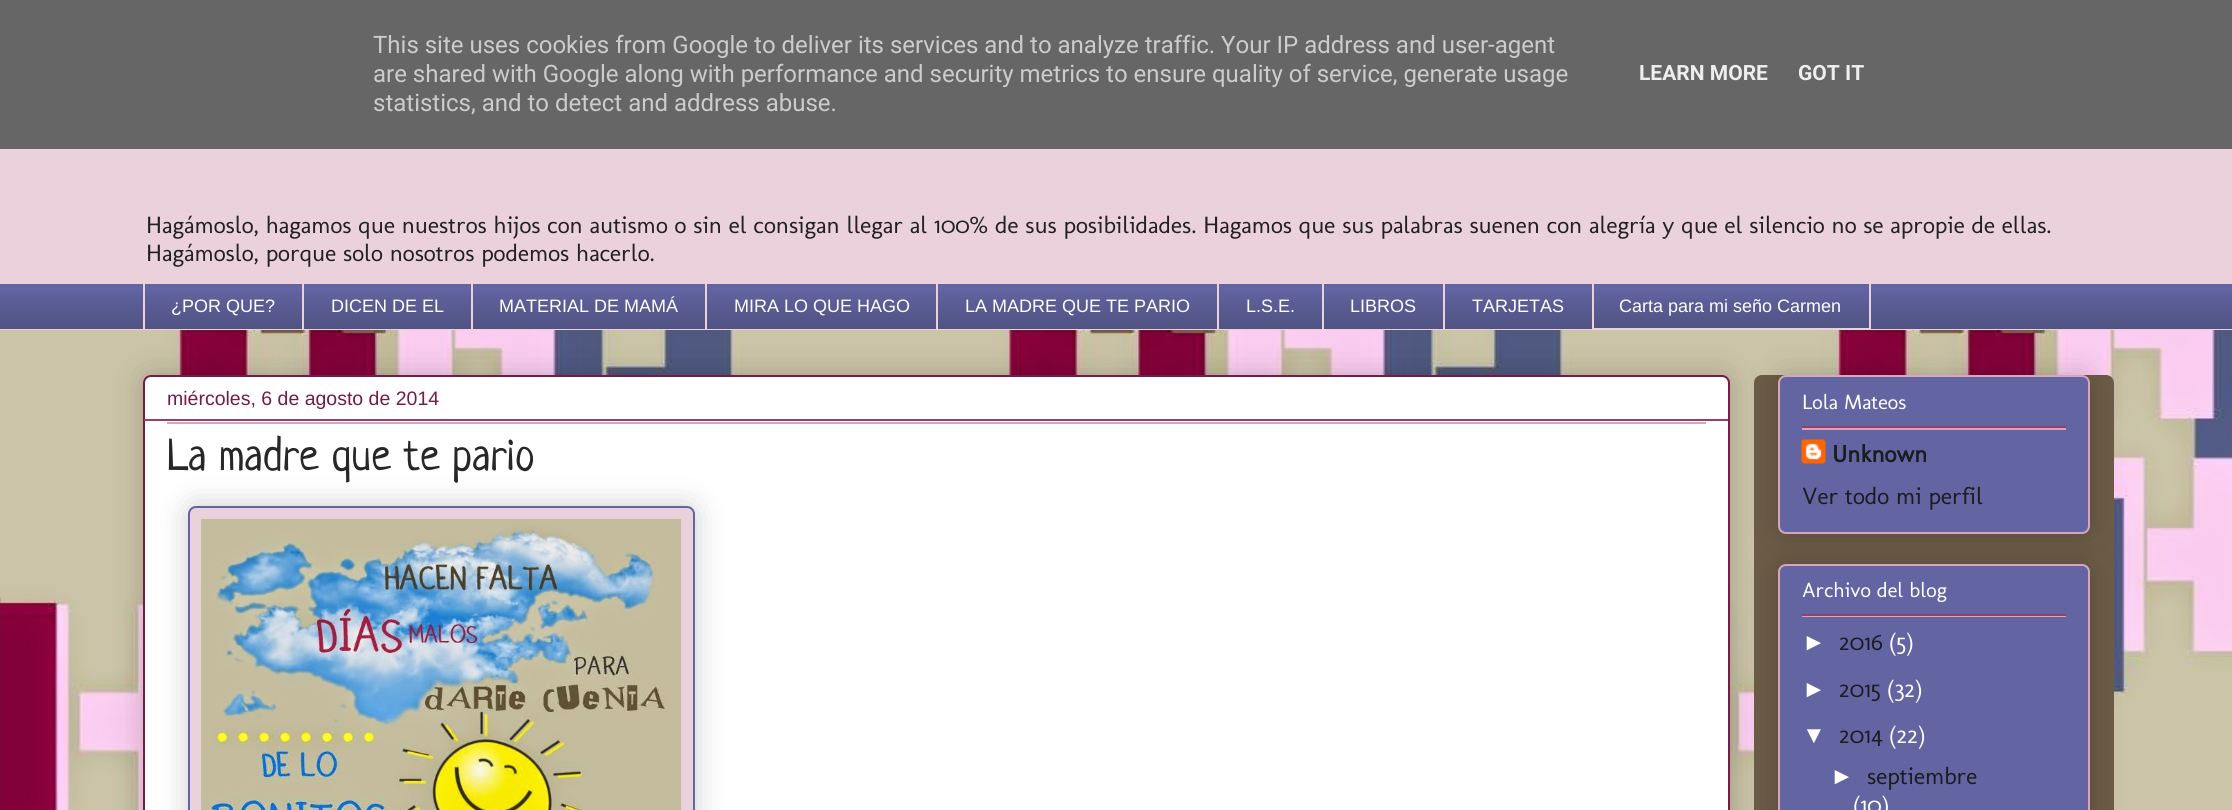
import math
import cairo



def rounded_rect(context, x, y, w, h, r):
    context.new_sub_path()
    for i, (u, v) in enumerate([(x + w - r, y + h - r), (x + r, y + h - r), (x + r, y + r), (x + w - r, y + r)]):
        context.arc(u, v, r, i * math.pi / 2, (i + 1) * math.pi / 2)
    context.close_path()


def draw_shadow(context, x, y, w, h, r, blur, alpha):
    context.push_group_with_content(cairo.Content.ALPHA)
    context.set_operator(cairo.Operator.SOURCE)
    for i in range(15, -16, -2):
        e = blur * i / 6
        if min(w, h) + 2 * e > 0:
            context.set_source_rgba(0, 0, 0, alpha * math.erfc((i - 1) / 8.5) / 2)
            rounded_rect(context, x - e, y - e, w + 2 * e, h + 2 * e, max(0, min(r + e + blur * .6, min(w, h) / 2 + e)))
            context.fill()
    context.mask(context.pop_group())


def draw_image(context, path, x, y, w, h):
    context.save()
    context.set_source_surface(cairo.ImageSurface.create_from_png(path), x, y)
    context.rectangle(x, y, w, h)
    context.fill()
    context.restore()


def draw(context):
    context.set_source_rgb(1, 1, 1)
    context.paint()
    draw_image(context, "images/1.png", 0, 330, 2232, 480)
    context.set_source_rgb(102 / 255, 102 / 255, 102 / 255)
    context.rectangle(0, 0, 2232, 149)
    context.fill()
    context.set_source_rgb(234 / 255, 209 / 255, 220 / 255)
    context.rectangle(0, 149, 2232, 135)
    context.fill()
    context.set_source_rgb(98 / 255, 101 / 255, 161 / 255)
    context.rectangle(0, 284, 2232, 45)
    context.fill()
    draw_image(context, "images/2.png", 0, 292, 2232, 37)
    context.set_source_rgb(234 / 255, 209 / 255, 220 / 255)
    context.rectangle(143, 282, 2, 48)
    context.fill()
    context.rectangle(302, 282, 2, 48)
    context.fill()
    context.rectangle(471, 282, 2, 48)
    context.fill()
    context.rectangle(705, 282, 2, 48)
    context.fill()
    context.rectangle(936, 282, 2, 48)
    context.fill()
    context.rectangle(1217, 282, 2, 48)
    context.fill()
    context.rectangle(1322, 282, 2, 48)
    context.fill()
    context.rectangle(1443, 282, 2, 48)
    context.fill()
    context.rectangle(1593, 283, 277, 46)
    context.stroke()
    context.rectangle(0, 329, 2232, 1)
    context.fill()
    context.set_source_rgb(0, 0, 0)
    draw_shadow(context, 143, 375, 1587, 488, 8, 15, 0.2)
    context.set_source_rgb(1, 1, 1)
    rounded_rect(context, 144, 376, 1585, 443, 7)
    context.fill_preserve()
    context.set_source_rgb(116 / 255, 27 / 255, 71 / 255)
    context.stroke()
    context.set_source_rgb(153 / 255, 61 / 255, 106 / 255)
    context.rectangle(144, 419, 1584, 2)
    context.fill()
    context.set_source_rgb(213 / 255, 166 / 255, 189 / 255)
    context.rectangle(167, 422, 1539, 2)
    context.fill()
    context.set_source_rgb(0, 0, 0)
    draw_shadow(context, 188, 506, 507, 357, 8, 15, 0.2)
    context.set_source_rgb(234 / 255, 209 / 255, 220 / 255)
    rounded_rect(context, 189, 507, 505, 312, 7)
    context.fill_preserve()
    context.set_source_rgb(98 / 255, 101 / 255, 161 / 255)
    context.stroke()
    draw_image(context, "images/3.png", 201, 519, 480, 291)
    context.set_source_rgb(108 / 255, 92 / 255, 71 / 255)
    rounded_rect(context, 1754, 375, 360, 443, 8)
    context.fill()
    context.set_source_rgb(0, 0, 0)
    draw_shadow(context, 1778, 375, 312, 159, 8, 15, 0.2)
    context.set_source_rgb(98 / 255, 101 / 255, 161 / 255)
    rounded_rect(context, 1779, 376, 310, 157, 7)
    context.fill_preserve()
    context.set_source_rgb(213 / 255, 166 / 255, 189 / 255)
    context.stroke()
    context.set_source_rgb(153 / 255, 61 / 255, 106 / 255)
    context.rectangle(1802, 426, 264, 2)
    context.fill()
    context.set_source_rgb(213 / 255, 166 / 255, 189 / 255)
    context.rectangle(1802, 428, 264, 2)
    context.fill()
    draw_image(context, "images/4.png", 1801, 439, 25, 25)
    context.set_source_rgb(0, 0, 0)
    draw_shadow(context, 1778, 564, 312, 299, 8, 15, 0.2)
    context.set_source_rgb(98 / 255, 101 / 255, 161 / 255)
    rounded_rect(context, 1779, 565, 310, 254, 7)
    context.fill_preserve()
    context.set_source_rgb(213 / 255, 166 / 255, 189 / 255)
    context.stroke()
    context.set_source_rgb(153 / 255, 61 / 255, 106 / 255)
    context.rectangle(1802, 614, 264, 2)
    context.fill()
    context.set_source_rgb(213 / 255, 166 / 255, 189 / 255)
    context.rectangle(1802, 616, 264, 1)
    context.fill()
    context.select_font_face("Roboto")
    context.set_font_size(24)
    context.set_source_rgb(204 / 255, 204 / 255, 204 / 255)
    context.move_to(373, 53)
    context.show_text("This site uses cookies from Google to deliver its services and to analyze traffic. Your IP address and user-agent")
    context.move_to(373, 82)
    context.show_text("are shared with Google along with performance and security metrics to ensure quality of service, generate usage")
    context.move_to(373, 111)
    context.show_text("statistics, and to detect and address abuse.")
    context.select_font_face("Roboto", cairo.FontSlant.NORMAL, cairo.FontWeight.BOLD)
    context.set_font_size(21)
    context.set_source_rgb(238 / 255, 238 / 255, 238 / 255)
    context.move_to(1639, 80)
    context.show_text("LEARN MORE")
    context.move_to(1798, 80)
    context.show_text("GOT IT")
    context.select_font_face("Molengo")
    context.set_font_size(24)
    context.set_source_rgb(34 / 255, 33 / 255, 33 / 255)
    context.move_to(146, 233)
    context.show_text("Hagámoslo, hagamos que nuestros hijos con autismo o sin el consigan llegar al 100% de sus posibilidades. Hagamos que sus palabras suenen con alegría y que el silencio no se apropie de ellas.")
    context.move_to(146, 261)
    context.show_text("Hagámoslo, porque solo nosotros podemos hacerlo.")
    context.select_font_face("Liberation Sans")
    context.set_font_size(18)
    context.set_source_rgb(1, 1, 1)
    context.move_to(171, 312)
    context.show_text("¿POR QUE?")
    context.move_to(331, 312)
    context.show_text("DICEN DE EL")
    context.move_to(499, 312)
    context.show_text("MATERIAL DE MAMÁ")
    context.move_to(734, 312)
    context.show_text("MIRA LO QUE HAGO")
    context.move_to(965, 312)
    context.show_text("LA MADRE QUE TE PARIO")
    context.move_to(1246, 312)
    context.show_text("L.S.E.")
    context.move_to(1350, 312)
    context.show_text("LIBROS")
    context.move_to(1472, 312)
    context.show_text("TARJETAS")
    context.move_to(1619, 312)
    context.show_text("Carta para mi seño Carmen")
    context.set_font_size(19.5)
    context.set_source_rgb(116 / 255, 27 / 255, 71 / 255)
    context.move_to(167, 405)
    context.show_text("miércoles, 6 de agosto de 2014")
    context.select_font_face("Neucha")
    context.set_font_size(45)
    context.set_source_rgb(40 / 255, 39 / 255, 39 / 255)
    context.move_to(167, 470)
    context.show_text("La madre que te pario")
    context.select_font_face("Molengo")
    context.set_font_size(21)
    context.set_source_rgb(1, 1, 1)
    context.move_to(1802, 409)
    context.show_text("Lola Mateos")
    context.select_font_face("Molengo", cairo.FontSlant.NORMAL, cairo.FontWeight.BOLD)
    context.set_font_size(24)
    context.set_source_rgb(27 / 255, 28 / 255, 31 / 255)
    context.move_to(1832, 462)
    context.show_text("Unknown")
    context.select_font_face("Molengo")
    context.move_to(1802, 504)
    context.show_text("Ver todo mi perfil")
    context.set_font_size(21)
    context.set_source_rgb(1, 1, 1)
    context.move_to(1802, 597)
    context.show_text("Archivo del blog")
    context.select_font_face("Liberation Sans")
    context.set_font_size(24)
    context.move_to(1802, 650)
    context.show_text("►")
    context.select_font_face("Molengo")
    context.set_source_rgb(27 / 255, 28 / 255, 31 / 255)
    context.move_to(1839, 650)
    context.show_text("2016")
    context.set_source_rgb(1, 1, 1)
    context.move_to(1889, 650)
    context.show_text("(5)")
    context.select_font_face("Liberation Sans")
    context.move_to(1802, 697)
    context.show_text("►")
    context.select_font_face("Molengo")
    context.set_source_rgb(27 / 255, 28 / 255, 31 / 255)
    context.move_to(1839, 697)
    context.show_text("2015")
    context.set_source_rgb(1, 1, 1)
    context.move_to(1887, 697)
    context.show_text("(32)")
    context.select_font_face("Liberation Sans")
    context.move_to(1802, 743)
    context.show_text("▼")
    context.select_font_face("Molengo")
    context.set_source_rgb(27 / 255, 28 / 255, 31 / 255)
    context.move_to(1839, 743)
    context.show_text("2014")
    context.set_source_rgb(1, 1, 1)
    context.move_to(1889, 743)
    context.show_text("(22)")
    context.select_font_face("Liberation Sans")
    context.move_to(1830, 784)
    context.show_text("►")
    context.select_font_face("Molengo")
    context.set_source_rgb(27 / 255, 28 / 255, 31 / 255)
    context.move_to(1867, 784)
    context.show_text("septiembre")
    context.set_source_rgb(1, 1, 1)
    context.move_to(1853, 813)
    context.show_text("(10)")


surface = cairo.ImageSurface(cairo.Format.RGB24, 2232, 810)
context = cairo.Context(surface)
options = cairo.FontOptions()
options.set_hint_metrics(cairo.HintMetrics.OFF)
options.set_hint_style(cairo.HintStyle.NONE)
context.set_font_options(options)
context.set_miter_limit(4)
draw(context)
surface.write_to_png("out.png")
